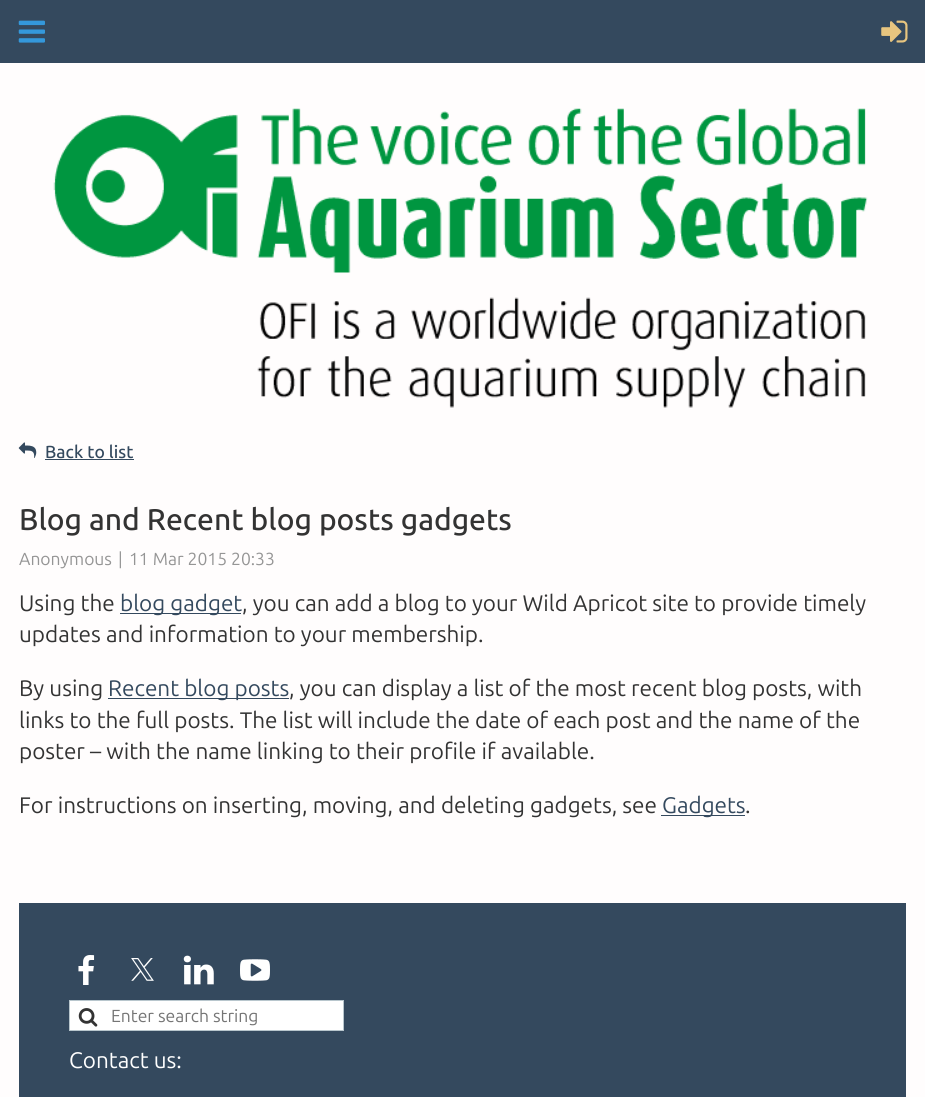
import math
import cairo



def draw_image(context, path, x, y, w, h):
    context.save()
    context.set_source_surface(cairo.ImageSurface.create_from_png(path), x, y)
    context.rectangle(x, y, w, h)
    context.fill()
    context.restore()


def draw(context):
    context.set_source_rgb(1, 253 / 255, 253 / 255)
    context.paint()
    context.set_source_rgb(52 / 255, 73 / 255, 94 / 255)
    context.rectangle(0, 0, 925, 63)
    context.fill()
    draw_image(context, "images/1.png", 18, 20, 27, 23)
    draw_image(context, "images/2.png", 881, 20, 27, 23)
    draw_image(context, "images/3.png", 53, 108, 815, 300)
    draw_image(context, "images/4.png", 18, 442, 19, 16)
    context.rectangle(45, 459, 89, 1)
    context.fill()
    context.rectangle(120, 613, 121, 1)
    context.fill()
    context.rectangle(108, 698, 181, 1)
    context.fill()
    context.rectangle(661, 815, 84, 1)
    context.fill()
    context.rectangle(19, 903, 887, 194)
    context.fill()
    draw_image(context, "images/5.png", 78, 955, 17, 30)
    draw_image(context, "images/6.png", 131, 958, 23, 23)
    draw_image(context, "images/7.png", 183, 955, 31, 30)
    draw_image(context, "images/8.png", 240, 959, 30, 22)
    context.set_source_rgb(1, 1, 1)
    context.rectangle(69.5, 1000.5, 274, 30)
    context.fill_preserve()
    context.set_source_rgb(184 / 255, 198 / 255, 205 / 255)
    context.set_line_width(1)
    context.stroke()
    draw_image(context, "images/9.png", 78, 1008, 20, 19)
    context.select_font_face("Ubuntu Medium")
    context.set_font_size(17.5)
    context.set_source_rgb(52 / 255, 73 / 255, 94 / 255)
    context.move_to(45, 458)
    context.show_text("Back to list")
    context.set_font_size(30)
    context.set_source_rgb(51 / 255, 51 / 255, 51 / 255)
    context.move_to(19, 530)
    context.show_text("Blog and Recent blog posts gadgets")
    context.select_font_face("Ubuntu")
    context.set_font_size(17.5)
    context.set_source_rgb(149 / 255, 149 / 255, 149 / 255)
    context.move_to(19, 565)
    context.show_text("Anonymous")
    context.move_to(118, 565)
    context.show_text("|")
    context.move_to(129, 565)
    context.show_text("11 Mar 2015 20:33")
    context.set_font_size(22.5)
    context.set_source_rgb(51 / 255, 51 / 255, 51 / 255)
    context.move_to(19, 611)
    context.show_text("Using the")
    context.set_source_rgb(52 / 255, 73 / 255, 94 / 255)
    context.move_to(120, 611)
    context.show_text("blog gadget")
    context.set_source_rgb(51 / 255, 51 / 255, 51 / 255)
    context.move_to(242, 611)
    context.show_text(", you can add a blog to your Wild Apricot site to provide timely")
    context.move_to(19, 642)
    context.show_text("updates and information to your membership.")
    context.move_to(19, 696)
    context.show_text("By using")
    context.set_source_rgb(52 / 255, 73 / 255, 94 / 255)
    context.move_to(108, 696)
    context.show_text("Recent blog posts")
    context.set_source_rgb(51 / 255, 51 / 255, 51 / 255)
    context.move_to(289, 696)
    context.show_text(", you can display a list of the most recent blog posts, with")
    context.move_to(19, 728)
    context.show_text("links to the full posts. The list will include the date of each post and the name of the")
    context.move_to(19, 759)
    context.show_text("poster – with the name linking to their profile if available.")
    context.move_to(19, 813)
    context.show_text("For instructions on inserting, moving, and deleting gadgets, see")
    context.set_source_rgb(52 / 255, 73 / 255, 94 / 255)
    context.move_to(662, 813)
    context.show_text("Gadgets")
    context.set_source_rgb(51 / 255, 51 / 255, 51 / 255)
    context.move_to(745, 813)
    context.show_text(".")
    context.set_font_size(17.5)
    context.set_source_rgb(117 / 255, 117 / 255, 117 / 255)
    context.move_to(111, 1022)
    context.show_text("Enter search string")
    context.set_font_size(22.5)
    context.set_source_rgb(1, 1, 1)
    context.move_to(69, 1068)
    context.show_text("Contact us:")


surface = cairo.ImageSurface(cairo.Format.RGB24, 925, 1097)
context = cairo.Context(surface)
options = cairo.FontOptions()
options.set_hint_metrics(cairo.HintMetrics.OFF)
options.set_hint_style(cairo.HintStyle.NONE)
context.set_font_options(options)
context.set_miter_limit(4)
draw(context)
surface.write_to_png("out.png")
